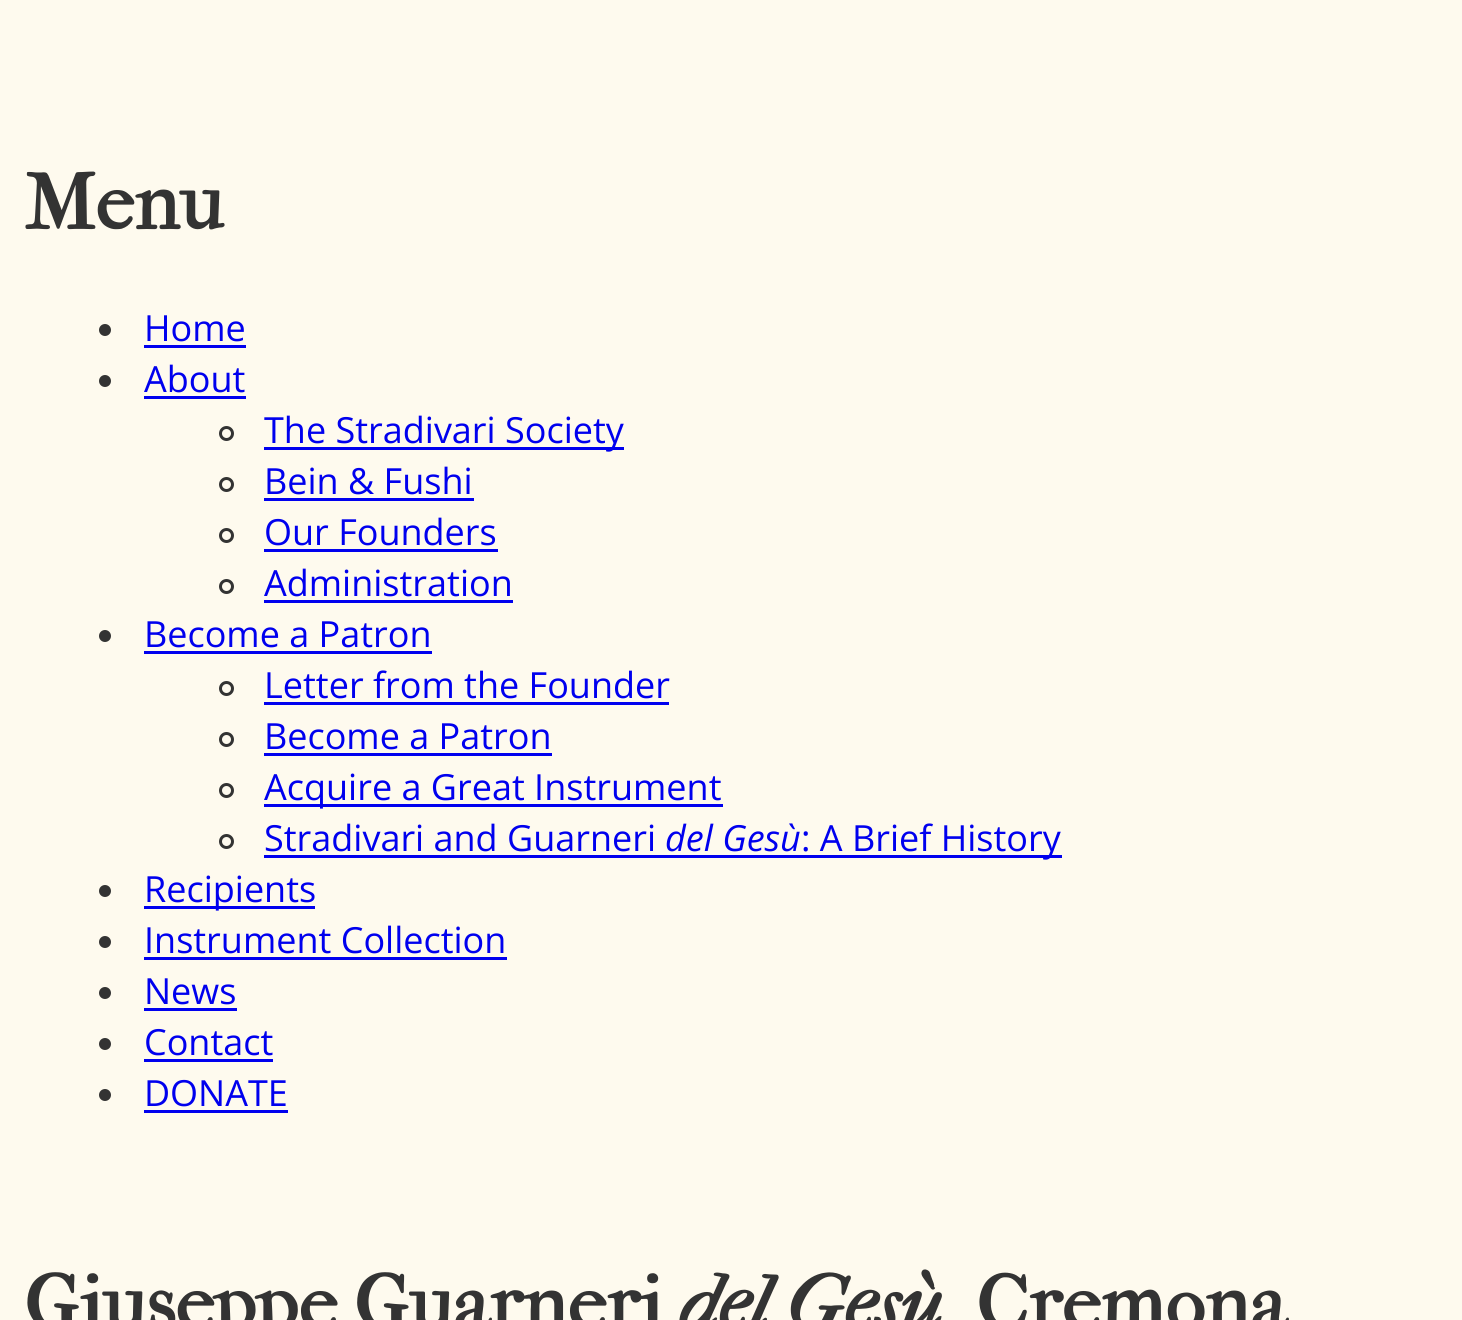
import math
import cairo



def draw(context):
    context.set_source_rgb(254 / 255, 250 / 255, 238 / 255)
    context.paint()
    context.set_source_rgb(51 / 255, 51 / 255, 51 / 255)
    context.arc(105, 330, 6, 0, 2 * math.pi)
    context.fill()
    context.set_source_rgb(0, 0, 238 / 255)
    context.rectangle(144, 345, 102, 3)
    context.fill()
    context.set_source_rgb(51 / 255, 51 / 255, 51 / 255)
    context.arc(105, 381, 6, 0, 2 * math.pi)
    context.fill()
    context.set_source_rgb(0, 0, 238 / 255)
    context.rectangle(144, 396, 102, 3)
    context.fill()
    context.arc(226.5, 433.5, 6, 0, 2 * math.pi)
    context.set_source_rgb(51 / 255, 51 / 255, 51 / 255)
    context.set_line_width(3)
    context.stroke()
    context.set_source_rgb(0, 0, 238 / 255)
    context.rectangle(264, 447, 360, 3)
    context.fill()
    context.arc(226.5, 484.5, 6, 0, 2 * math.pi)
    context.set_source_rgb(51 / 255, 51 / 255, 51 / 255)
    context.stroke()
    context.set_source_rgb(0, 0, 238 / 255)
    context.rectangle(264, 498, 210, 3)
    context.fill()
    context.arc(226.5, 535.5, 6, 0, 2 * math.pi)
    context.set_source_rgb(51 / 255, 51 / 255, 51 / 255)
    context.stroke()
    context.set_source_rgb(0, 0, 238 / 255)
    context.rectangle(264, 549, 234, 3)
    context.fill()
    context.arc(226.5, 586.5, 6, 0, 2 * math.pi)
    context.set_source_rgb(51 / 255, 51 / 255, 51 / 255)
    context.stroke()
    context.set_source_rgb(0, 0, 238 / 255)
    context.rectangle(264, 600, 249, 3)
    context.fill()
    context.set_source_rgb(51 / 255, 51 / 255, 51 / 255)
    context.arc(105, 636, 6, 0, 2 * math.pi)
    context.fill()
    context.set_source_rgb(0, 0, 238 / 255)
    context.rectangle(144, 651, 288, 3)
    context.fill()
    context.arc(226.5, 688.5, 6, 0, 2 * math.pi)
    context.set_source_rgb(51 / 255, 51 / 255, 51 / 255)
    context.stroke()
    context.set_source_rgb(0, 0, 238 / 255)
    context.rectangle(264, 702, 405, 3)
    context.fill()
    context.arc(226.5, 739.5, 6, 0, 2 * math.pi)
    context.set_source_rgb(51 / 255, 51 / 255, 51 / 255)
    context.stroke()
    context.set_source_rgb(0, 0, 238 / 255)
    context.rectangle(264, 753, 288, 3)
    context.fill()
    context.arc(226.5, 790.5, 6, 0, 2 * math.pi)
    context.set_source_rgb(51 / 255, 51 / 255, 51 / 255)
    context.stroke()
    context.set_source_rgb(0, 0, 238 / 255)
    context.rectangle(264, 804, 459, 3)
    context.fill()
    context.arc(226.5, 841.5, 6, 0, 2 * math.pi)
    context.set_source_rgb(51 / 255, 51 / 255, 51 / 255)
    context.stroke()
    context.set_source_rgb(0, 0, 238 / 255)
    context.rectangle(264, 855, 798, 3)
    context.fill()
    context.set_source_rgb(51 / 255, 51 / 255, 51 / 255)
    context.arc(105, 891, 6, 0, 2 * math.pi)
    context.fill()
    context.set_source_rgb(0, 0, 238 / 255)
    context.rectangle(144, 906, 171, 3)
    context.fill()
    context.set_source_rgb(51 / 255, 51 / 255, 51 / 255)
    context.arc(105, 942, 6, 0, 2 * math.pi)
    context.fill()
    context.set_source_rgb(0, 0, 238 / 255)
    context.rectangle(144, 957, 363, 3)
    context.fill()
    context.set_source_rgb(51 / 255, 51 / 255, 51 / 255)
    context.arc(105, 993, 6, 0, 2 * math.pi)
    context.fill()
    context.set_source_rgb(0, 0, 238 / 255)
    context.rectangle(144, 1008, 93, 3)
    context.fill()
    context.set_source_rgb(51 / 255, 51 / 255, 51 / 255)
    context.arc(105, 1044, 6, 0, 2 * math.pi)
    context.fill()
    context.set_source_rgb(0, 0, 238 / 255)
    context.rectangle(144, 1059, 129, 3)
    context.fill()
    context.set_source_rgb(51 / 255, 51 / 255, 51 / 255)
    context.arc(105, 1095, 6, 0, 2 * math.pi)
    context.fill()
    context.set_source_rgb(0, 0, 238 / 255)
    context.rectangle(144, 1110, 144, 3)
    context.fill()
    context.select_font_face("IM FELL French Canon", cairo.FontSlant.NORMAL, cairo.FontWeight.BOLD)
    context.set_font_size(78)
    context.set_source_rgb(51 / 255, 51 / 255, 51 / 255)
    context.move_to(24, 229)
    context.show_text("Menu")
    context.select_font_face("Open Sans")
    context.set_font_size(36)
    context.set_source_rgb(0, 0, 238 / 255)
    context.move_to(144, 341)
    context.show_text("Home")
    context.move_to(144, 392)
    context.show_text("About")
    context.move_to(264, 443)
    context.show_text("The Stradivari Society")
    context.move_to(264, 494)
    context.show_text("Bein & Fushi")
    context.move_to(264, 545)
    context.show_text("Our Founders")
    context.move_to(264, 596)
    context.show_text("Administration")
    context.move_to(144, 647)
    context.show_text("Become a Patron")
    context.move_to(264, 698)
    context.show_text("Letter from the Founder")
    context.move_to(264, 749)
    context.show_text("Become a Patron")
    context.move_to(264, 800)
    context.show_text("Acquire a Great Instrument")
    context.move_to(264, 851)
    context.show_text("Stradivari and Guarneri")
    context.select_font_face("Open Sans", cairo.FontSlant.ITALIC)
    context.move_to(665, 851)
    context.show_text("del Gesù")
    context.select_font_face("Open Sans")
    context.move_to(801, 851)
    context.show_text(": A Brief History")
    context.move_to(144, 902)
    context.show_text("Recipients")
    context.move_to(144, 953)
    context.show_text("Instrument Collection")
    context.move_to(144, 1004)
    context.show_text("News")
    context.move_to(144, 1055)
    context.show_text("Contact")
    context.move_to(144, 1106)
    context.show_text("DONATE")
    context.select_font_face("IM FELL French Canon", cairo.FontSlant.NORMAL, cairo.FontWeight.BOLD)
    context.set_font_size(78)
    context.set_source_rgb(51 / 255, 51 / 255, 51 / 255)
    context.move_to(24, 1330)
    context.show_text("Giuseppe Guarneri")
    context.select_font_face("IM FELL French Canon", cairo.FontSlant.ITALIC, cairo.FontWeight.BOLD)
    context.move_to(679, 1330)
    context.show_text("del Gesù")
    context.select_font_face("IM FELL French Canon", cairo.FontSlant.NORMAL, cairo.FontWeight.BOLD)
    context.move_to(976, 1330)
    context.show_text("Cremona")


surface = cairo.ImageSurface(cairo.Format.RGB24, 1462, 1320)
context = cairo.Context(surface)
options = cairo.FontOptions()
options.set_hint_metrics(cairo.HintMetrics.OFF)
options.set_hint_style(cairo.HintStyle.NONE)
context.set_font_options(options)
context.set_miter_limit(4)
draw(context)
surface.write_to_png("out.png")
